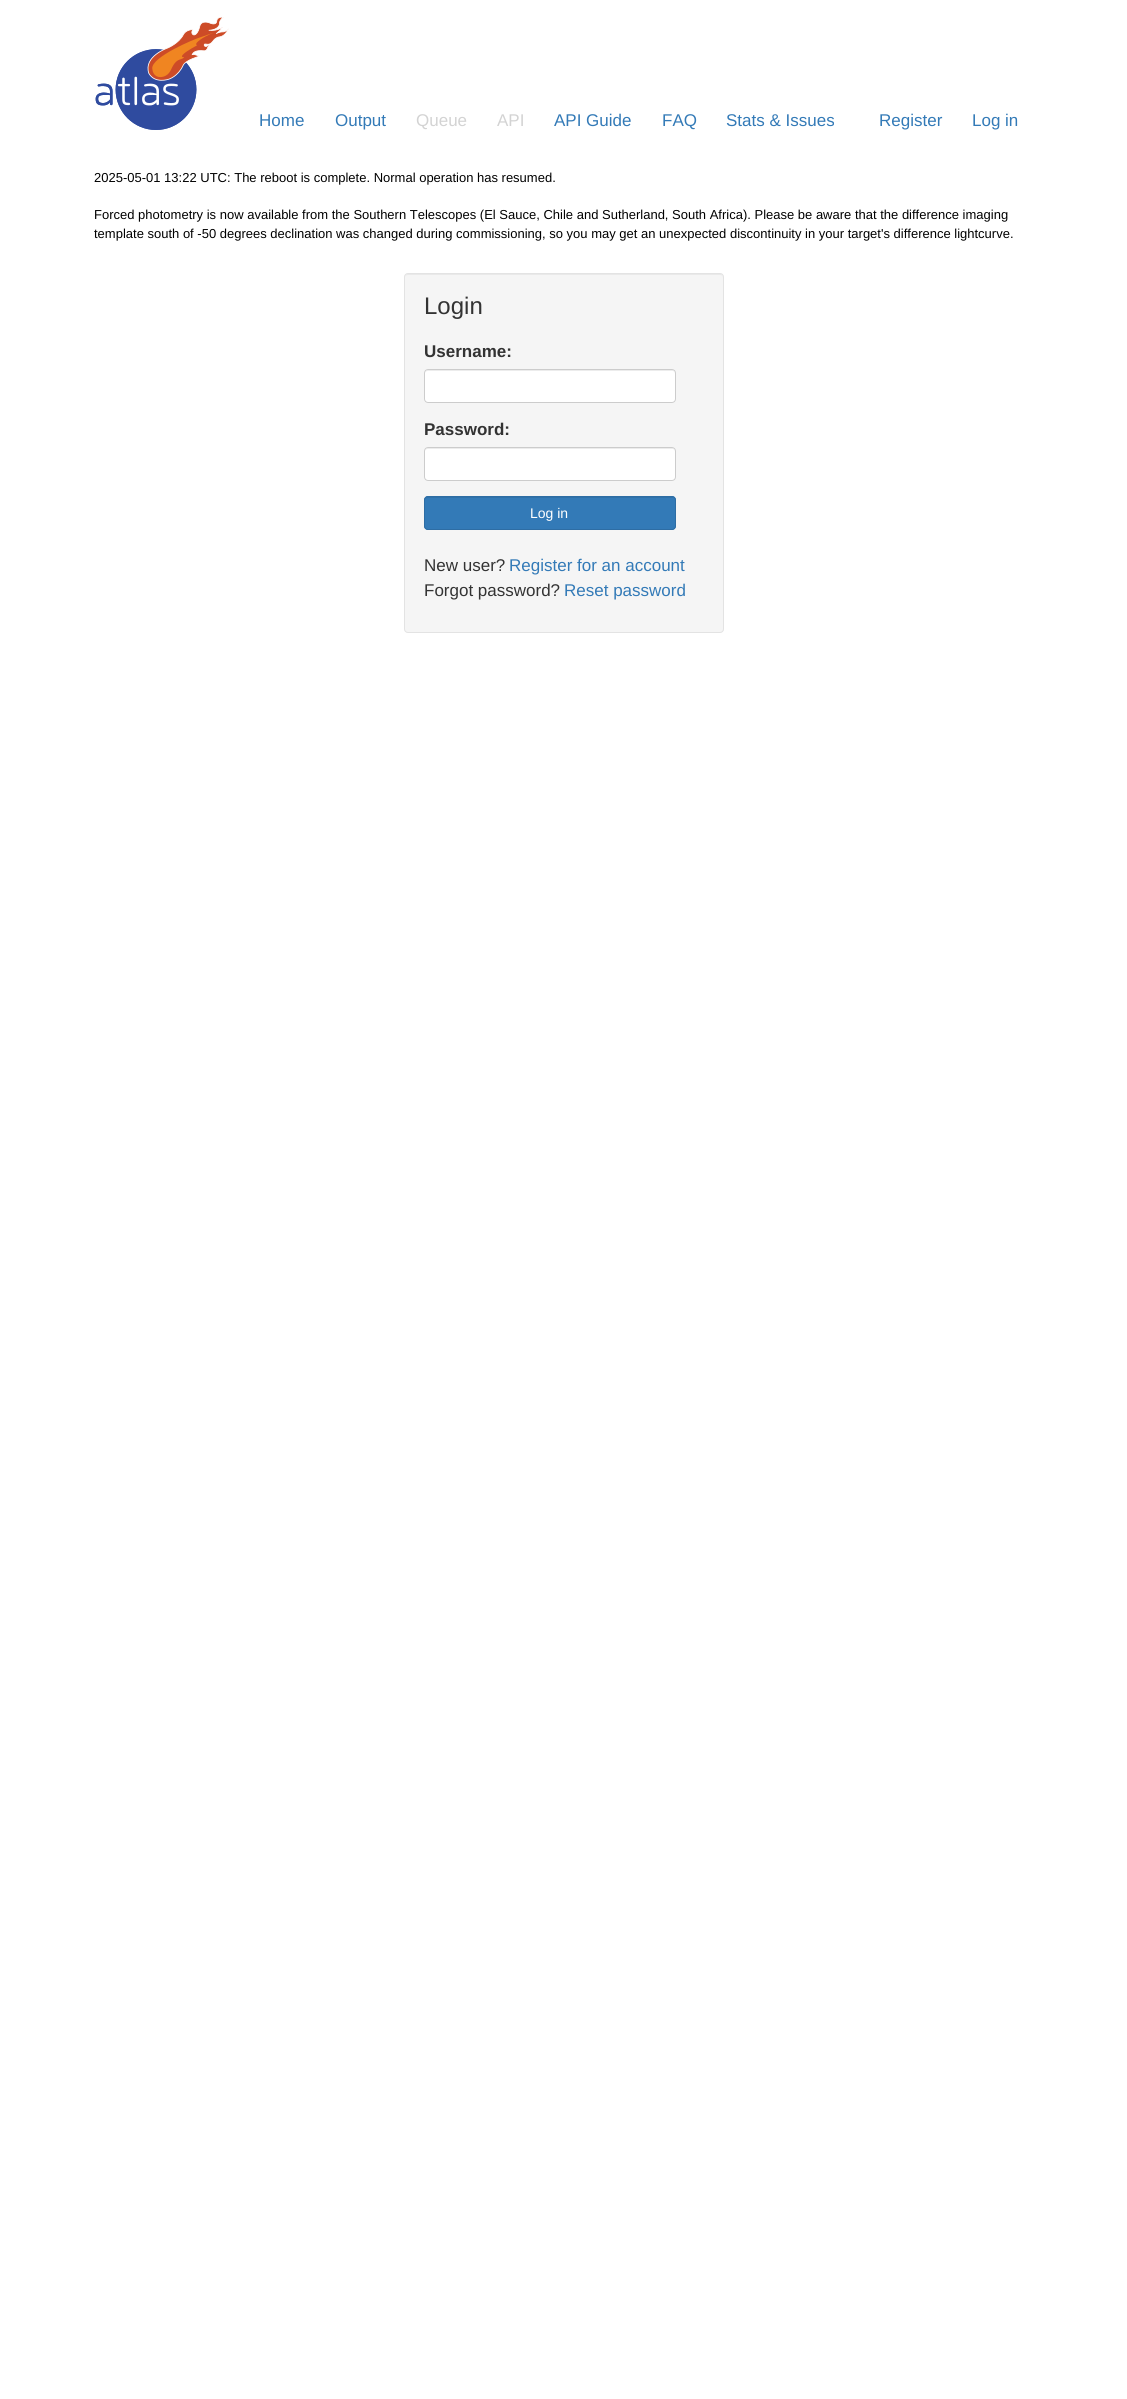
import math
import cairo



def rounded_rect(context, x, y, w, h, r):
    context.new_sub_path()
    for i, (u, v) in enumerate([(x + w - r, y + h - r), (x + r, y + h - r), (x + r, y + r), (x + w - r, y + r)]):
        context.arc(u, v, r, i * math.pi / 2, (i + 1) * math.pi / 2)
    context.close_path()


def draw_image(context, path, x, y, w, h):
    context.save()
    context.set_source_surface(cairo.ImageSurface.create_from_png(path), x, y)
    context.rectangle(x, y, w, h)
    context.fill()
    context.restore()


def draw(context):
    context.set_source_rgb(1, 1, 1)
    context.paint()
    draw_image(context, "images/1.png", 95, 17, 134, 113)
    context.set_source_rgb(245 / 255, 245 / 255, 245 / 255)
    rounded_rect(context, 404, 273, 320, 360, 4)
    context.fill()
    context.set_source_rgb(233 / 255, 233 / 255, 233 / 255)
    context.new_path()
    context.move_to(408, 275)
    context.line_to(720, 275)
    context.curve_to(722, 275, 723, 276, 723, 278)
    context.line_to(722, 275)
    context.line_to(721, 274)
    context.line_to(408, 274)
    context.curve_to(406, 274, 405, 276, 405, 278)
    context.curve_to(405, 276, 406, 275, 408, 275)
    context.close_path()
    context.fill()
    rounded_rect(context, 404.5, 273.5, 319, 359, 3.5)
    context.set_source_rgb(227 / 255, 227 / 255, 227 / 255)
    context.set_line_width(1)
    context.stroke()
    context.set_source_rgb(1, 1, 1)
    rounded_rect(context, 424, 369, 252, 34, 4)
    context.fill()
    context.set_source_rgb(236 / 255, 236 / 255, 236 / 255)
    context.new_path()
    context.move_to(428, 371)
    context.line_to(673, 371)
    context.line_to(675, 372)
    context.line_to(675, 374)
    context.curve_to(675, 372, 674, 370, 672, 370)
    context.line_to(428, 370)
    context.curve_to(426, 370, 425, 372, 425, 374)
    context.curve_to(425, 372, 426, 371, 428, 371)
    context.close_path()
    context.fill()
    rounded_rect(context, 424.5, 369.5, 251, 33, 3.5)
    context.set_source_rgb(204 / 255, 204 / 255, 204 / 255)
    context.stroke()
    context.set_source_rgb(1, 1, 1)
    rounded_rect(context, 424, 447, 252, 34, 4)
    context.fill()
    context.set_source_rgb(236 / 255, 236 / 255, 236 / 255)
    context.new_path()
    context.move_to(428, 449)
    context.line_to(673, 449)
    context.line_to(675, 450)
    context.line_to(675, 452)
    context.curve_to(675, 450, 674, 448, 672, 448)
    context.line_to(428, 448)
    context.curve_to(426, 448, 425, 450, 425, 452)
    context.curve_to(425, 450, 426, 449, 428, 449)
    context.close_path()
    context.fill()
    rounded_rect(context, 424.5, 447.5, 251, 33, 3.5)
    context.set_source_rgb(204 / 255, 204 / 255, 204 / 255)
    context.stroke()
    context.set_source_rgb(51 / 255, 122 / 255, 183 / 255)
    rounded_rect(context, 424, 496, 252, 34, 4)
    context.fill()
    context.set_source_rgb(47 / 255, 113 / 255, 169 / 255)
    context.new_path()
    context.move_to(428, 498)
    context.line_to(673, 498)
    context.line_to(675, 499)
    context.line_to(675, 501)
    context.curve_to(675, 499, 674, 497, 672, 497)
    context.line_to(428, 497)
    context.curve_to(426, 497, 425, 499, 425, 501)
    context.curve_to(425, 499, 426, 498, 428, 498)
    context.close_path()
    context.fill()
    rounded_rect(context, 424.5, 496.5, 251, 33, 3.5)
    context.set_source_rgb(46 / 255, 109 / 255, 164 / 255)
    context.stroke()
    context.select_font_face("Liberation Sans")
    context.set_font_size(17)
    context.set_source_rgb(51 / 255, 122 / 255, 183 / 255)
    context.move_to(259, 126)
    context.show_text("Home")
    context.move_to(335, 126)
    context.show_text("Output")
    context.set_source_rgb(211 / 255, 211 / 255, 211 / 255)
    context.move_to(416, 126)
    context.show_text("Queue")
    context.move_to(497, 126)
    context.show_text("API")
    context.set_source_rgb(51 / 255, 122 / 255, 183 / 255)
    context.move_to(554, 126)
    context.show_text("API Guide")
    context.move_to(662, 126)
    context.show_text("FAQ")
    context.move_to(726, 126)
    context.show_text("Stats & Issues")
    context.move_to(879, 126)
    context.show_text("Register")
    context.move_to(972, 126)
    context.show_text("Log in")
    context.set_font_size(13)
    context.set_source_rgb(0, 0, 0)
    context.move_to(94, 182)
    context.show_text("2025-05-01 13:22 UTC: The reboot is complete. Normal operation has resumed.")
    context.move_to(94, 219)
    context.show_text("Forced photometry is now available from the Southern Telescopes (El Sauce, Chile and Sutherland, South Africa). Please be aware that the difference imaging")
    context.move_to(94, 238)
    context.show_text("template south of -50 degrees declination was changed during commissioning, so you may get an unexpected discontinuity in your target's difference lightcurve.")
    context.set_font_size(24)
    context.set_source_rgb(51 / 255, 51 / 255, 51 / 255)
    context.move_to(424, 314)
    context.show_text("Login")
    context.select_font_face("Liberation Sans", cairo.FontSlant.NORMAL, cairo.FontWeight.BOLD)
    context.set_font_size(17)
    context.move_to(424, 357)
    context.show_text("Username:")
    context.move_to(424, 435)
    context.show_text("Password:")
    context.select_font_face("Liberation Sans")
    context.set_font_size(14)
    context.set_source_rgb(1, 1, 1)
    context.move_to(530, 518)
    context.show_text("Log in")
    context.set_font_size(17)
    context.set_source_rgb(51 / 255, 51 / 255, 51 / 255)
    context.move_to(424, 571)
    context.show_text("New user?")
    context.set_source_rgb(51 / 255, 122 / 255, 183 / 255)
    context.move_to(509, 571)
    context.show_text("Register for an account")
    context.set_source_rgb(51 / 255, 51 / 255, 51 / 255)
    context.move_to(424, 596)
    context.show_text("Forgot password?")
    context.set_source_rgb(51 / 255, 122 / 255, 183 / 255)
    context.move_to(564, 596)
    context.show_text("Reset password")


surface = cairo.ImageSurface(cairo.Format.RGB24, 1127, 2399)
context = cairo.Context(surface)
options = cairo.FontOptions()
options.set_hint_metrics(cairo.HintMetrics.OFF)
options.set_hint_style(cairo.HintStyle.NONE)
context.set_font_options(options)
context.set_miter_limit(4)
draw(context)
surface.write_to_png("out.png")
